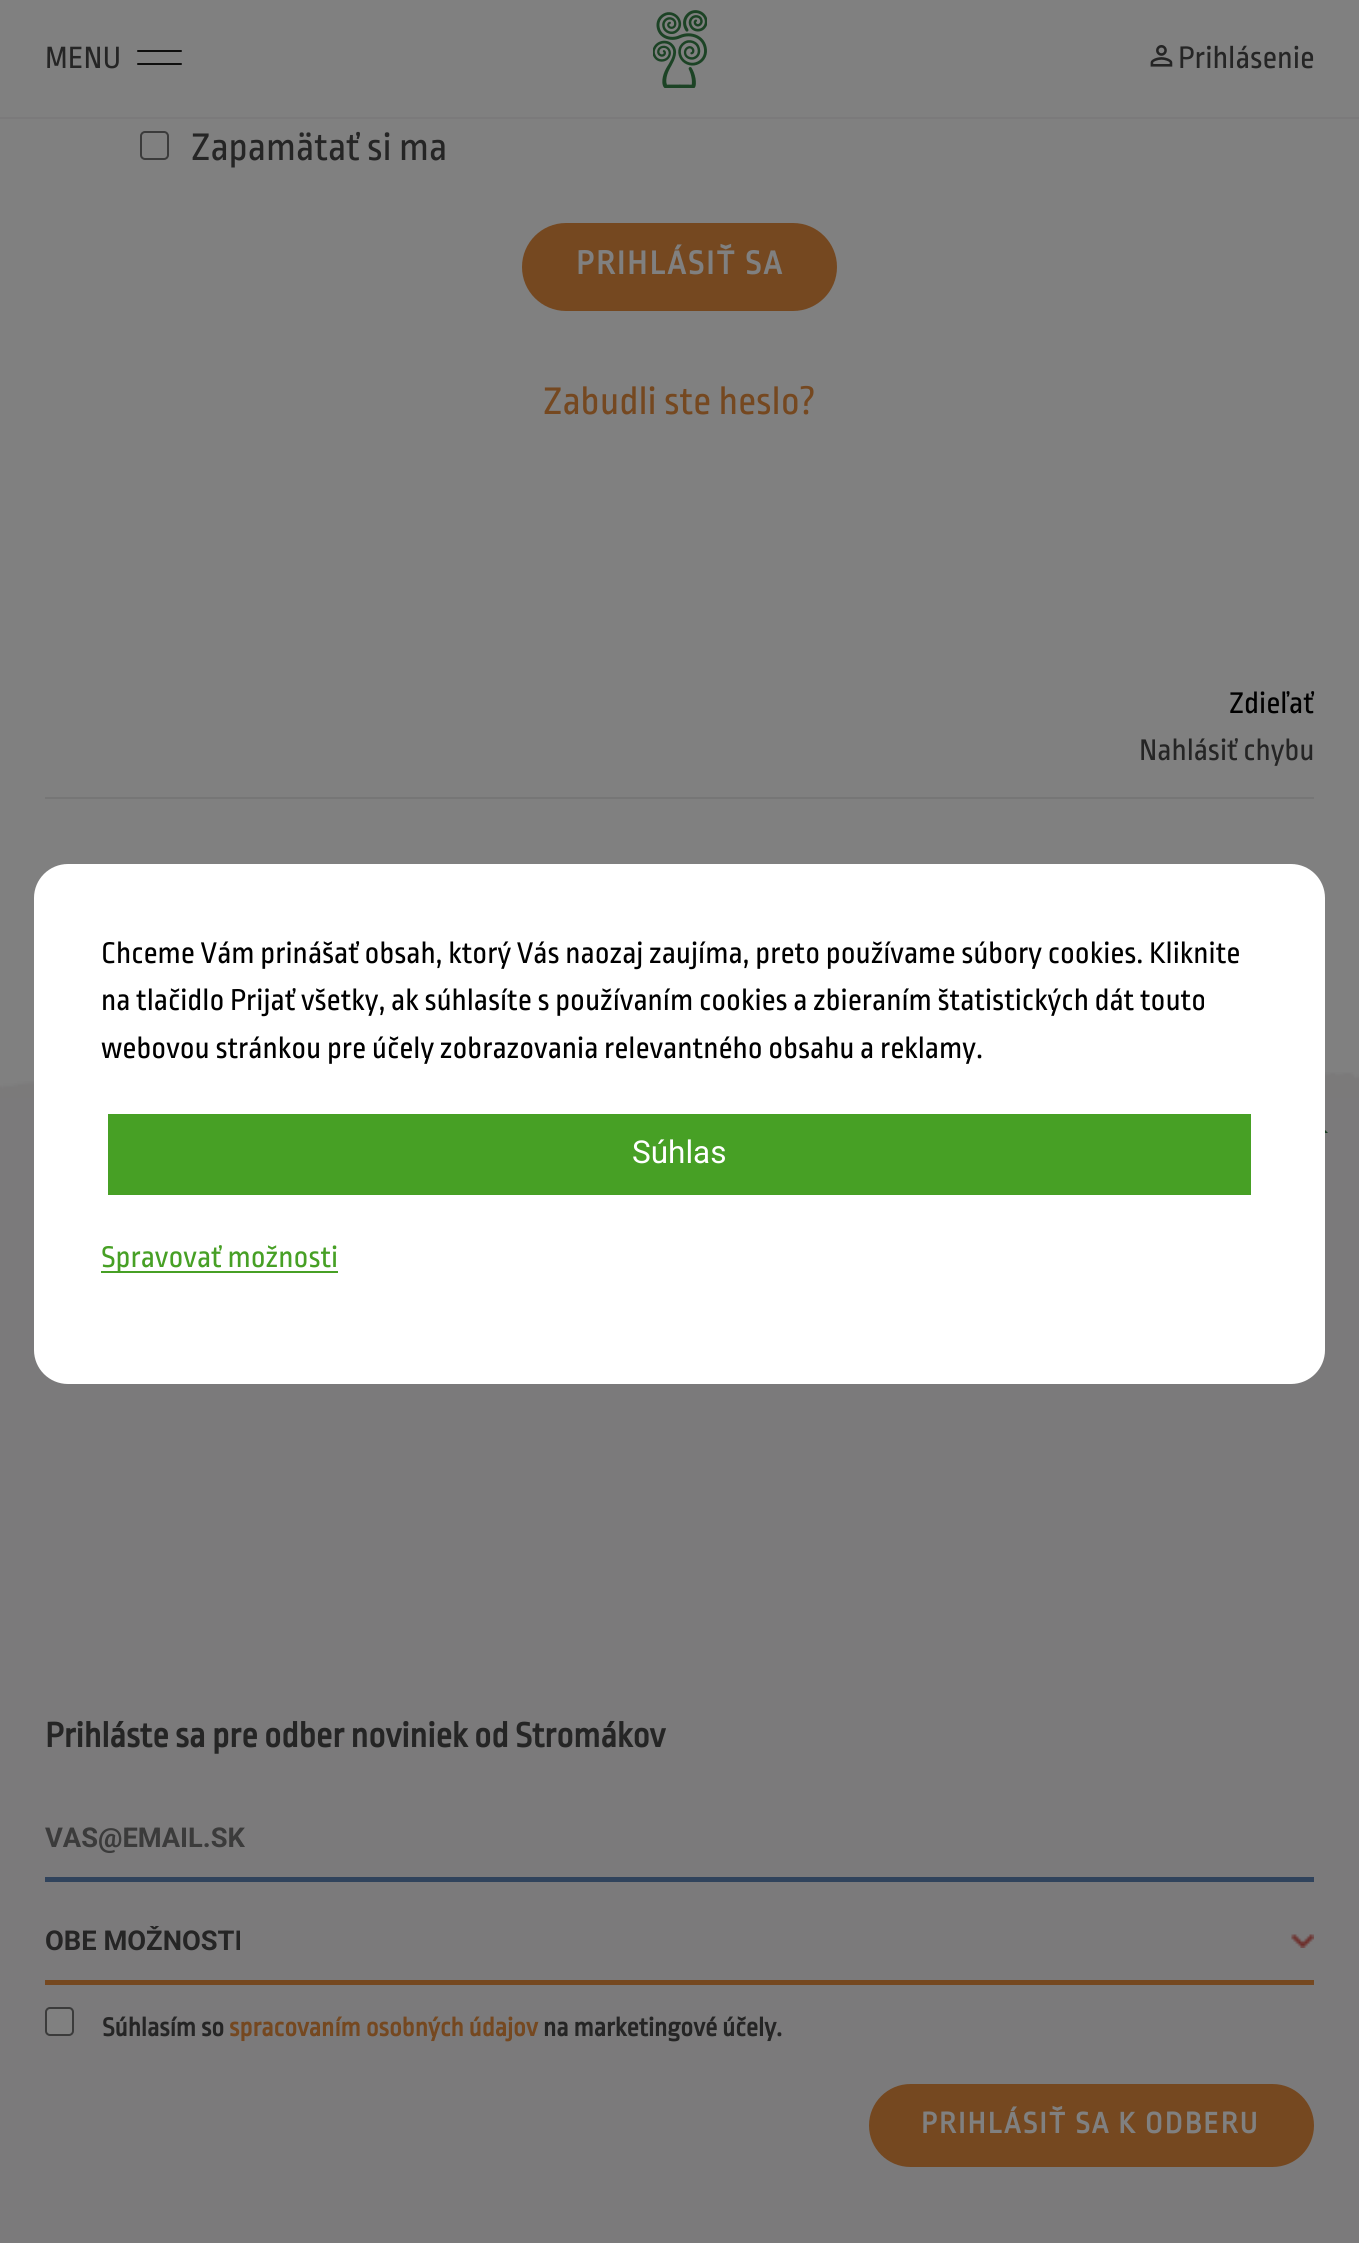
import math
import cairo



def draw_spaced(context, x, y, s, letter, word):
    context.move_to(x, y)
    for ch in s:
        context.show_text(ch)
        context.rel_move_to(letter + word * (ch == ' '), 0)


def rounded_rect(context, x, y, w, h, r):
    context.new_sub_path()
    for i, (u, v) in enumerate([(x + w - r, y + h - r), (x + r, y + h - r), (x + r, y + r), (x + w - r, y + r)]):
        context.arc(u, v, r, i * math.pi / 2, (i + 1) * math.pi / 2)
    context.close_path()


def draw_image(context, path, x, y, w, h):
    context.save()
    context.set_source_surface(cairo.ImageSurface.create_from_png(path), x, y)
    context.rectangle(x, y, w, h)
    context.fill()
    context.restore()


def draw(context):
    context.set_source_rgb(128 / 255, 128 / 255, 128 / 255)
    context.paint()
    context.set_source_rgb(123 / 255, 122 / 255, 123 / 255)
    context.rectangle(0, 117, 1359, 2)
    context.fill()
    context.set_source_rgb(15 / 255, 15 / 255, 14 / 255)
    rounded_rect(context, 137, 50, 45, 2, 1)
    context.fill()
    rounded_rect(context, 137, 63, 45, 2, 1)
    context.fill()
    draw_image(context, "images/1.png", 653, 10, 54, 78)
    draw_image(context, "images/2.png", 1150, 45, 23, 22)
    rounded_rect(context, 141, 132, 27, 27, 4)
    context.set_source_rgb(59 / 255, 59 / 255, 59 / 255)
    context.stroke()
    context.set_source_rgb(117 / 255, 72 / 255, 32 / 255)
    rounded_rect(context, 522, 223, 315, 88, 44)
    context.fill()
    context.set_source_rgb(118 / 255, 118 / 255, 118 / 255)
    context.rectangle(45, 797, 1269, 2)
    context.fill()
    context.set_source_rgb(123 / 255, 122 / 255, 123 / 255)
    context.rectangle(0, 1098, 1359, 1145)
    context.fill()
    draw_image(context, "images/3.png", 0, 1008, 1359, 90)
    context.set_source_rgb(24 / 255, 61 / 255, 32 / 255)
    context.new_path()
    context.move_to(1315.5, 1133)
    context.line_to(1322, 1127)
    context.line_to(1328, 1133)
    context.close_path()
    context.fill()
    context.set_source_rgb(48 / 255, 67 / 255, 92 / 255)
    context.rectangle(45, 1877, 1269, 5)
    context.fill()
    draw_image(context, "images/4.png", 1291, 1934, 23, 14)
    context.set_source_rgb(117 / 255, 72 / 255, 32 / 255)
    context.rectangle(45, 1980, 1269, 5)
    context.fill()
    context.set_source_rgb(128 / 255, 128 / 255, 128 / 255)
    rounded_rect(context, 46, 2008, 27, 27, 4)
    context.fill_preserve()
    context.set_source_rgb(59 / 255, 59 / 255, 59 / 255)
    context.stroke()
    context.set_source_rgb(117 / 255, 72 / 255, 32 / 255)
    rounded_rect(context, 869, 2084, 445, 83, 41.5)
    context.fill()
    context.set_source_rgb(1, 1, 1)
    rounded_rect(context, 34, 864, 1291, 520, 34)
    context.fill()
    context.set_source_rgb(71 / 255, 160 / 255, 37 / 255)
    context.rectangle(108, 1114, 1143, 81)
    context.fill()
    context.rectangle(101, 1271, 237, 2)
    context.fill()
    context.select_font_face("Ropa Sans")
    context.set_font_size(32.5)
    context.set_source_rgb(37 / 255, 37 / 255, 37 / 255)
    context.move_to(45, 68)
    context.show_text("MENU")
    context.move_to(1178, 68)
    context.show_text("Prihlásenie")
    context.set_font_size(40.5)
    context.move_to(191, 160)
    context.show_text("Zapamätať si ma")
    context.select_font_face("Ropa Sans", cairo.FontSlant.NORMAL, cairo.FontWeight.BOLD)
    context.set_font_size(34.5)
    context.set_source_rgb(128 / 255, 128 / 255, 128 / 255)
    draw_spaced(context, 576, 274, "PRIHLÁSIŤ SA", 2.25, 0)
    context.select_font_face("Ropa Sans")
    context.set_font_size(40.5)
    context.set_source_rgb(117 / 255, 72 / 255, 32 / 255)
    context.move_to(543, 414)
    context.show_text("Zabudli ste heslo?")
    context.set_font_size(31.5)
    context.set_source_rgb(0, 0, 0)
    context.move_to(1229, 713)
    context.show_text("Zdieľať")
    context.set_source_rgb(37 / 255, 37 / 255, 37 / 255)
    context.move_to(1139, 760)
    context.show_text("Nahlásiť chybu")
    context.select_font_face("Ropa Sans", cairo.FontSlant.NORMAL, cairo.FontWeight.BOLD)
    context.set_font_size(36.5)
    context.move_to(45, 1747)
    context.show_text("Prihláste sa pre odber noviniek od Stromákov")
    context.select_font_face("Roboto", cairo.FontSlant.NORMAL, cairo.FontWeight.BOLD)
    context.set_font_size(27.3)
    context.set_source_rgb(59 / 255, 59 / 255, 59 / 255)
    context.move_to(45, 1847)
    context.show_text("VAS@EMAIL.SK")
    context.save()
    context.rectangle(45, 1926, 1269, 32)
    context.clip()
    context.set_source_rgb(37 / 255, 37 / 255, 37 / 255)
    context.move_to(45, 1950)
    context.show_text("OBE MOŽNOSTI")
    context.restore()
    context.select_font_face("Ropa Sans", cairo.FontSlant.NORMAL, cairo.FontWeight.BOLD)
    context.set_source_rgb(37 / 255, 37 / 255, 37 / 255)
    context.move_to(102, 2036)
    context.show_text("Súhlasím so")
    context.set_source_rgb(117 / 255, 72 / 255, 32 / 255)
    context.move_to(229, 2036)
    context.show_text("spracovaním osobných údajov")
    context.set_source_rgb(37 / 255, 37 / 255, 37 / 255)
    context.move_to(543, 2036)
    context.show_text("na marketingové účely.")
    context.set_font_size(31)
    context.set_source_rgb(128 / 255, 128 / 255, 128 / 255)
    draw_spaced(context, 921, 2133, "PRIHLÁSIŤ SA K ODBERU", 2.25, 0)
    context.select_font_face("Ropa Sans")
    context.set_font_size(31.5)
    context.set_source_rgb(0, 0, 0)
    context.move_to(101, 963)
    context.show_text("Chceme Vám prinášať obsah, ktorý Vás naozaj zaujíma, preto používame súbory cookies. Kliknite")
    context.move_to(101, 1010)
    context.show_text("na tlačidlo Prijať všetky, ak súhlasíte s používaním cookies a zbieraním štatistických dát touto")
    context.move_to(101, 1058)
    context.show_text("webovou stránkou pre účely zobrazovania relevantného obsahu a reklamy.")
    context.select_font_face("Roboto")
    context.set_source_rgb(1, 1, 1)
    context.move_to(632, 1163)
    context.show_text("Súhlas")
    context.select_font_face("Ropa Sans")
    context.set_source_rgb(71 / 255, 160 / 255, 37 / 255)
    context.move_to(101, 1267)
    context.show_text("Spravovať možnosti")


surface = cairo.ImageSurface(cairo.Format.RGB24, 1359, 2243)
context = cairo.Context(surface)
options = cairo.FontOptions()
options.set_hint_metrics(cairo.HintMetrics.OFF)
options.set_hint_style(cairo.HintStyle.NONE)
context.set_font_options(options)
context.set_miter_limit(4)
draw(context)
surface.write_to_png("out.png")
